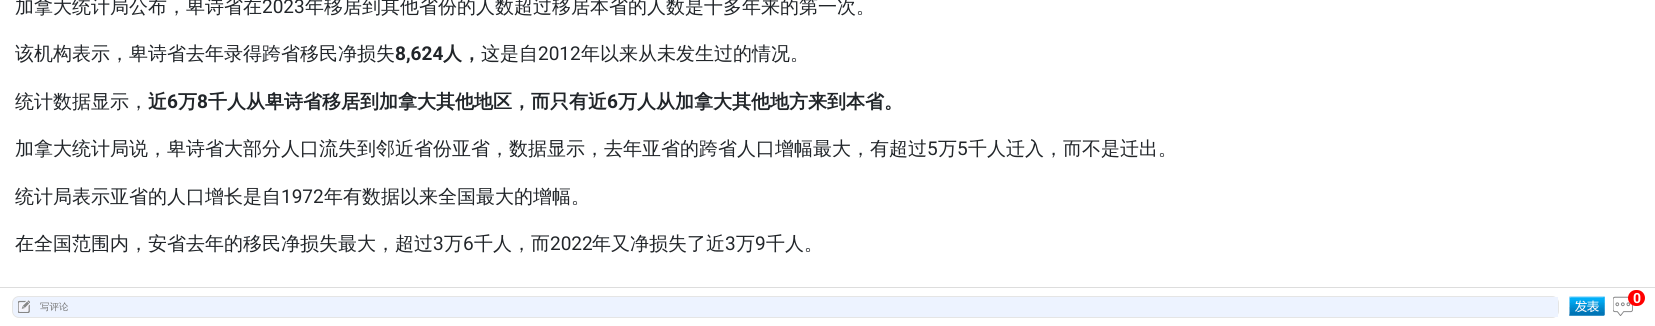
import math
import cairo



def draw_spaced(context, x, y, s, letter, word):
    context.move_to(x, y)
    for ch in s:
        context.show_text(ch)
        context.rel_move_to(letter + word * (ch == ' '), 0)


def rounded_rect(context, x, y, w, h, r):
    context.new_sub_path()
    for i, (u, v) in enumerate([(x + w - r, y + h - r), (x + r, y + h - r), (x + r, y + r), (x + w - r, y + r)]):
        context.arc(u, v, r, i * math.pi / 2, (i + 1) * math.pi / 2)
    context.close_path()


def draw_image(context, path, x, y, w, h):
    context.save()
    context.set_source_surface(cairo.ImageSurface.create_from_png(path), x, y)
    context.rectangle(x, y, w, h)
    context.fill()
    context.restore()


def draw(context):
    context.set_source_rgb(1, 1, 1)
    context.paint()
    context.set_source_rgb(221 / 255, 221 / 255, 221 / 255)
    context.rectangle(0, 287, 1655, 1)
    context.fill()
    context.set_source_rgb(237 / 255, 243 / 255, 1)
    rounded_rect(context, 12.5, 296.5, 1546, 21, 6.5)
    context.fill_preserve()
    context.set_source_rgb(229 / 255, 229 / 255, 229 / 255)
    context.set_line_width(1)
    context.stroke()
    draw_image(context, "images/1.png", 18, 300, 12, 13)
    context.set_source_rgb(237 / 255, 243 / 255, 1)
    context.rectangle(1553, 297, 5, 20)
    context.fill()
    draw_image(context, "images/2.png", 1569, 296, 36, 20)
    draw_image(context, "images/3.png", 1613, 296, 20, 20)
    context.set_source_rgb(1, 0, 0)
    rounded_rect(context, 1628, 290, 17, 16, 8)
    context.fill()
    context.select_font_face("WenQuanYi Zen Hei Medium")
    context.set_font_size(19)
    context.set_source_rgb(33 / 255, 37 / 255, 41 / 255)
    context.move_to(15, 13)
    context.show_text("加拿大统计局公布，卑诗省在")
    context.select_font_face("Roboto")
    context.move_to(262, 13)
    context.show_text("2023")
    context.select_font_face("WenQuanYi Zen Hei Medium")
    context.move_to(305, 13)
    context.show_text("年移居到其他省份的人数超过移居本省的人数是十多年来的第一次。")
    context.move_to(15, 60)
    context.show_text("该机构表示，卑诗省去年录得跨省移民净损失")
    context.select_font_face("Roboto", cairo.FontSlant.NORMAL, cairo.FontWeight.BOLD)
    context.move_to(395, 60)
    context.show_text("8,624")
    context.select_font_face("WenQuanYi Zen Hei", cairo.FontSlant.NORMAL, cairo.FontWeight.BOLD)
    context.move_to(443, 60)
    context.show_text("人，")
    context.select_font_face("WenQuanYi Zen Hei Medium")
    context.move_to(481, 60)
    context.show_text("这是自")
    context.select_font_face("Roboto")
    context.move_to(538, 60)
    context.show_text("2012")
    context.select_font_face("WenQuanYi Zen Hei Medium")
    context.move_to(581, 60)
    context.show_text("年以来从未发生过的情况。")
    context.move_to(15, 108)
    context.show_text("统计数据显示，")
    context.select_font_face("WenQuanYi Zen Hei", cairo.FontSlant.NORMAL, cairo.FontWeight.BOLD)
    context.move_to(148, 108)
    context.show_text("近")
    context.select_font_face("Roboto", cairo.FontSlant.NORMAL, cairo.FontWeight.BOLD)
    context.move_to(167, 108)
    context.show_text("6")
    context.select_font_face("WenQuanYi Zen Hei", cairo.FontSlant.NORMAL, cairo.FontWeight.BOLD)
    context.move_to(178, 108)
    context.show_text("万")
    context.select_font_face("Roboto", cairo.FontSlant.NORMAL, cairo.FontWeight.BOLD)
    context.move_to(197, 108)
    context.show_text("8")
    context.select_font_face("WenQuanYi Zen Hei", cairo.FontSlant.NORMAL, cairo.FontWeight.BOLD)
    context.move_to(208, 108)
    context.show_text("千人从卑诗省移居到加拿大其他地区，而只有近")
    context.select_font_face("Roboto", cairo.FontSlant.NORMAL, cairo.FontWeight.BOLD)
    context.move_to(607, 108)
    context.show_text("6")
    context.select_font_face("WenQuanYi Zen Hei", cairo.FontSlant.NORMAL, cairo.FontWeight.BOLD)
    context.move_to(618, 108)
    context.show_text("万人从加拿大其他地方来到本省。")
    context.select_font_face("WenQuanYi Zen Hei Medium")
    context.move_to(15, 155)
    context.show_text("加拿大统计局说，卑诗省大部分人口流失到邻近省份亚省，数据显示，去年亚省的跨省人口增幅最大，有超过")
    context.select_font_face("Roboto")
    context.move_to(927, 155)
    context.show_text("5")
    context.select_font_face("WenQuanYi Zen Hei Medium")
    context.move_to(938, 155)
    context.show_text("万")
    context.select_font_face("Roboto")
    context.move_to(957, 155)
    context.show_text("5")
    context.select_font_face("WenQuanYi Zen Hei Medium")
    context.move_to(968, 155)
    context.show_text("千人迁入，而不是迁出。")
    context.move_to(15, 203)
    context.show_text("统计局表示亚省的人口增长是自")
    context.select_font_face("Roboto")
    context.move_to(281, 203)
    context.show_text("1972")
    context.select_font_face("WenQuanYi Zen Hei Medium")
    context.move_to(324, 203)
    context.show_text("年有数据以来全国最大的增幅。")
    context.move_to(15, 250)
    context.show_text("在全国范围内，安省去年的移民净损失最大，超过")
    context.select_font_face("Roboto")
    context.move_to(433, 250)
    context.show_text("3")
    context.select_font_face("WenQuanYi Zen Hei Medium")
    context.move_to(444, 250)
    context.show_text("万")
    context.select_font_face("Roboto")
    context.move_to(463, 250)
    context.show_text("6")
    context.select_font_face("WenQuanYi Zen Hei Medium")
    context.move_to(474, 250)
    context.show_text("千人，而")
    context.select_font_face("Roboto")
    context.move_to(550, 250)
    context.show_text("2022")
    context.select_font_face("WenQuanYi Zen Hei Medium")
    context.move_to(592, 250)
    context.show_text("年又净损失了近")
    context.select_font_face("Roboto")
    context.move_to(725, 250)
    context.show_text("3")
    context.select_font_face("WenQuanYi Zen Hei Medium")
    context.move_to(736, 250)
    context.show_text("万")
    context.select_font_face("Roboto")
    context.move_to(755, 250)
    context.show_text("9")
    context.select_font_face("WenQuanYi Zen Hei Medium")
    context.move_to(766, 250)
    context.show_text("千人。")
    context.set_font_size(9.5)
    context.set_source_rgb(117 / 255, 117 / 255, 117 / 255)
    context.move_to(40, 310)
    context.show_text("写评论")
    context.select_font_face("Roboto", cairo.FontSlant.NORMAL, cairo.FontWeight.BOLD)
    context.set_font_size(14)
    context.set_source_rgb(1, 1, 1)
    draw_spaced(context, 1633, 303, "0", -1, 0)


surface = cairo.ImageSurface(cairo.Format.RGB24, 1655, 326)
context = cairo.Context(surface)
options = cairo.FontOptions()
options.set_hint_metrics(cairo.HintMetrics.OFF)
options.set_hint_style(cairo.HintStyle.NONE)
context.set_font_options(options)
context.set_miter_limit(4)
draw(context)
surface.write_to_png("out.png")
